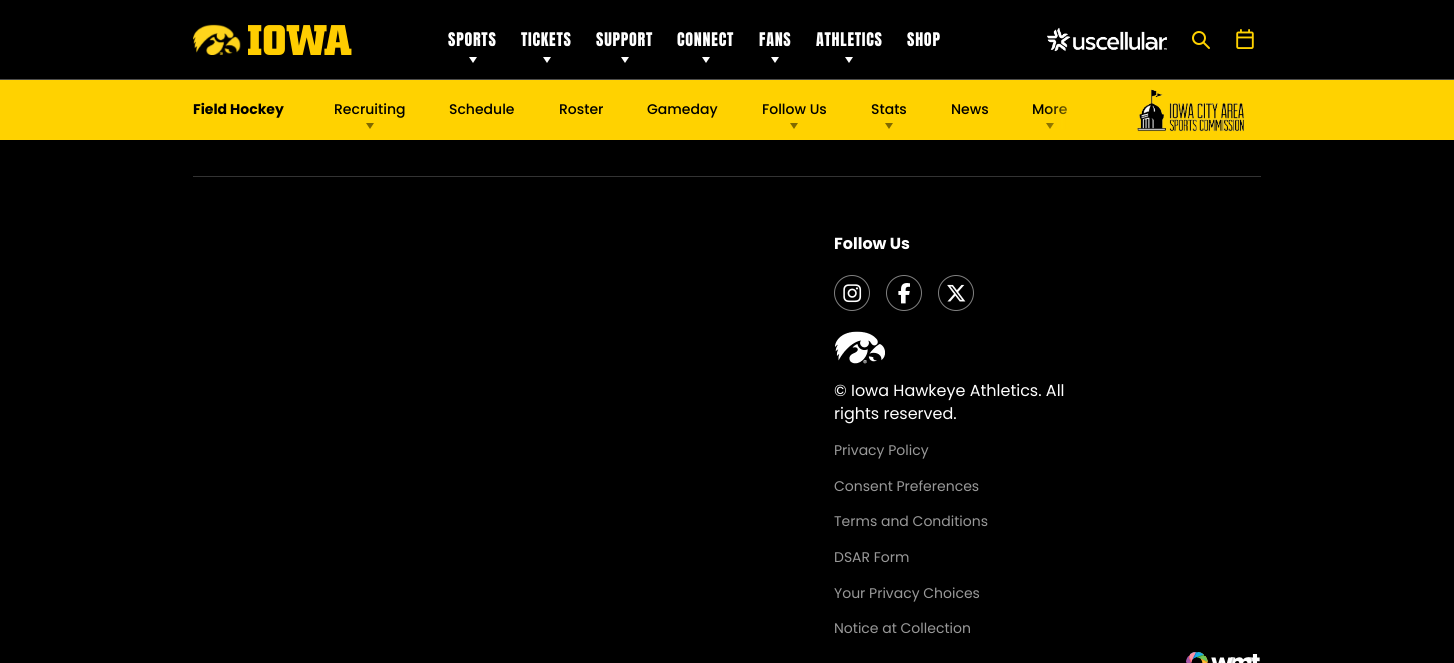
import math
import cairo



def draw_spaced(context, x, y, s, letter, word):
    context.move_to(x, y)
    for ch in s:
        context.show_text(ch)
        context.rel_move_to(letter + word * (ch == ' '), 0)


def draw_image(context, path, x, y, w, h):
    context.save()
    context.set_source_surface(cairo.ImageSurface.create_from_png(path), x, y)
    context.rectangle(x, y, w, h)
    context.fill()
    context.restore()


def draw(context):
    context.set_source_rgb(0, 0, 0)
    context.paint()
    context.set_source_rgb(77 / 255, 77 / 255, 77 / 255)
    context.rectangle(0, 79, 1454, 1)
    context.fill()
    draw_image(context, "images/1.png", 193, 24, 48, 31)
    draw_image(context, "images/2.png", 248, 25, 104, 30)
    context.set_source_rgb(1, 1, 1)
    context.new_path()
    context.move_to(469, 57)
    context.line_to(477, 57)
    context.line_to(473, 63)
    context.close_path()
    context.fill()
    context.new_path()
    context.move_to(543, 57)
    context.line_to(551, 57)
    context.line_to(547, 63)
    context.close_path()
    context.fill()
    context.new_path()
    context.move_to(621, 57)
    context.line_to(629, 57)
    context.line_to(625, 63)
    context.close_path()
    context.fill()
    context.new_path()
    context.move_to(702, 57)
    context.line_to(710, 57)
    context.line_to(706, 63)
    context.close_path()
    context.fill()
    context.new_path()
    context.move_to(771, 57)
    context.line_to(779, 57)
    context.line_to(775, 63)
    context.close_path()
    context.fill()
    context.new_path()
    context.move_to(845, 57)
    context.line_to(853, 57)
    context.line_to(849, 63)
    context.close_path()
    context.fill()
    draw_image(context, "images/3.png", 1047, 27, 120, 25)
    draw_image(context, "images/4.png", 1192, 31, 18, 18)
    draw_image(context, "images/5.png", 1236, 29, 18, 20)
    context.set_source_rgb(1, 210 / 255, 0)
    context.rectangle(0, 80, 1454, 60)
    context.fill()
    context.set_source_rgb(128 / 255, 105 / 255, 0)
    context.new_path()
    context.move_to(366, 123)
    context.line_to(374, 123)
    context.line_to(370, 129)
    context.close_path()
    context.fill()
    context.new_path()
    context.move_to(790, 123)
    context.line_to(798, 123)
    context.line_to(794, 129)
    context.close_path()
    context.fill()
    context.new_path()
    context.move_to(885, 123)
    context.line_to(893, 123)
    context.line_to(889, 129)
    context.close_path()
    context.fill()
    context.new_path()
    context.move_to(1046, 123)
    context.line_to(1054, 123)
    context.line_to(1050, 129)
    context.close_path()
    context.fill()
    draw_image(context, "images/6.png", 1137, 89, 107, 43)
    context.set_source_rgb(51 / 255, 51 / 255, 51 / 255)
    context.rectangle(193, 176, 1068, 1)
    context.fill()
    context.arc(852, 293, 17.5, 0, 2 * math.pi)
    context.set_source_rgb(128 / 255, 128 / 255, 128 / 255)
    context.set_line_width(1)
    context.stroke()
    draw_image(context, "images/7.png", 843, 284, 19, 19)
    context.arc(904, 293, 17.5, 0, 2 * math.pi)
    context.stroke()
    draw_image(context, "images/8.png", 898, 283, 12, 21)
    context.arc(956, 293, 17.5, 0, 2 * math.pi)
    context.stroke()
    draw_image(context, "images/9.png", 947, 284, 19, 18)
    draw_image(context, "images/10.png", 835, 331, 50, 33)
    draw_image(context, "images/11.png", 1186, 652, 74, 11)
    context.select_font_face("Anton")
    context.set_font_size(16)
    context.set_source_rgb(1, 1, 1)
    draw_spaced(context, 448, 46, "SPORTS", 0.75, 0)
    draw_spaced(context, 521, 46, "TICKETS", 0.75, 0)
    draw_spaced(context, 596, 46, "SUPPORT", 0.75, 0)
    draw_spaced(context, 677, 46, "CONNECT", 0.75, 0)
    draw_spaced(context, 759, 46, "FANS", 0.75, 0)
    draw_spaced(context, 816, 46, "ATHLETICS", 0.75, 0)
    draw_spaced(context, 907, 46, "SHOP", 0.75, 0)
    context.select_font_face("Poppins", cairo.FontSlant.NORMAL, cairo.FontWeight.BOLD)
    context.set_font_size(14)
    context.set_source_rgb(0, 0, 0)
    context.move_to(193, 114)
    context.show_text("Field Hockey")
    context.select_font_face("Poppins Medium")
    context.move_to(334, 114)
    context.show_text("Recruiting")
    context.move_to(449, 114)
    context.show_text("Schedule")
    context.move_to(559, 114)
    context.show_text("Roster")
    context.move_to(647, 114)
    context.show_text("Gameday")
    context.move_to(762, 114)
    context.show_text("Follow Us")
    context.move_to(871, 114)
    context.show_text("Stats")
    context.move_to(951, 114)
    context.show_text("News")
    context.move_to(1032, 114)
    context.show_text("More")
    gradient = cairo.LinearGradient(1104, 106, 1044, 106)
    gradient.add_color_stop_rgba(0, 1, 210 / 255, 0, 1)
    gradient.add_color_stop_rgba(0.5, 1, 210 / 255, 0, 0.6)
    gradient.add_color_stop_rgba(1, 1, 210 / 255, 0, 0)
    context.set_source(gradient)
    context.rectangle(1045, 106, 23, 23)
    context.fill()
    context.select_font_face("Poppins", cairo.FontSlant.NORMAL, cairo.FontWeight.BOLD)
    context.set_font_size(16)
    context.set_source_rgb(1, 1, 1)
    context.move_to(834, 249)
    context.show_text("Follow Us")
    context.select_font_face("Poppins")
    context.move_to(834, 396)
    context.show_text("© Iowa Hawkeye Athletics. All")
    context.move_to(834, 419)
    context.show_text("rights reserved.")
    context.set_font_size(14)
    context.set_source_rgb(153 / 255, 153 / 255, 153 / 255)
    context.move_to(834, 455)
    context.show_text("Privacy Policy")
    context.move_to(834, 491)
    context.show_text("Consent Preferences")
    context.move_to(834, 526)
    context.show_text("Terms and Conditions")
    context.move_to(834, 562)
    context.show_text("DSAR Form")
    context.move_to(834, 598)
    context.show_text("Your Privacy Choices")
    context.move_to(834, 633)
    context.show_text("Notice at Collection")


surface = cairo.ImageSurface(cairo.Format.RGB24, 1454, 663)
context = cairo.Context(surface)
options = cairo.FontOptions()
options.set_hint_metrics(cairo.HintMetrics.OFF)
options.set_hint_style(cairo.HintStyle.NONE)
context.set_font_options(options)
context.set_miter_limit(4)
draw(context)
surface.write_to_png("out.png")
